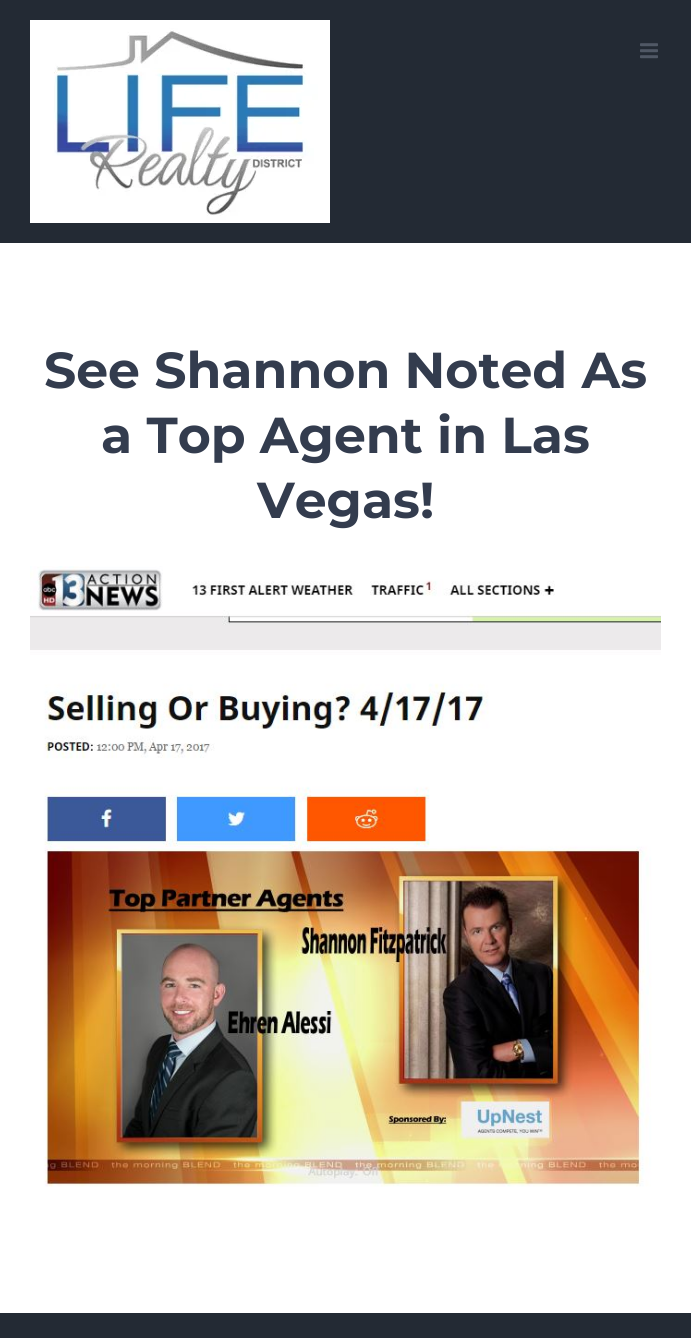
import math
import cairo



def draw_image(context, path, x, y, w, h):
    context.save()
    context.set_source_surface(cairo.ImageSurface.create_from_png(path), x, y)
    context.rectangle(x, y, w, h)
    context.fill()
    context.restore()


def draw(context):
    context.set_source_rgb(1, 1, 1)
    context.paint()
    context.set_source_rgb(35 / 255, 42 / 255, 52 / 255)
    context.rectangle(0, 0, 691, 243)
    context.fill()
    draw_image(context, "images/1.png", 30, 20, 300, 203)
    draw_image(context, "images/2.png", 640, 43, 18, 16)
    draw_image(context, "images/3.png", 30, 566, 631, 621)
    context.rectangle(0, 1313, 691, 25)
    context.fill()
    context.select_font_face("Montserrat", cairo.FontSlant.NORMAL, cairo.FontWeight.BOLD)
    context.set_font_size(50.5)
    context.set_source_rgb(51 / 255, 60 / 255, 78 / 255)
    context.move_to(44, 388)
    context.show_text("See Shannon Noted As")
    context.move_to(101, 453)
    context.show_text("a Top Agent in Las")
    context.move_to(257, 518)
    context.show_text("Vegas!")


surface = cairo.ImageSurface(cairo.Format.RGB24, 691, 1338)
context = cairo.Context(surface)
options = cairo.FontOptions()
options.set_hint_metrics(cairo.HintMetrics.OFF)
options.set_hint_style(cairo.HintStyle.NONE)
context.set_font_options(options)
context.set_miter_limit(4)
draw(context)
surface.write_to_png("out.png")
